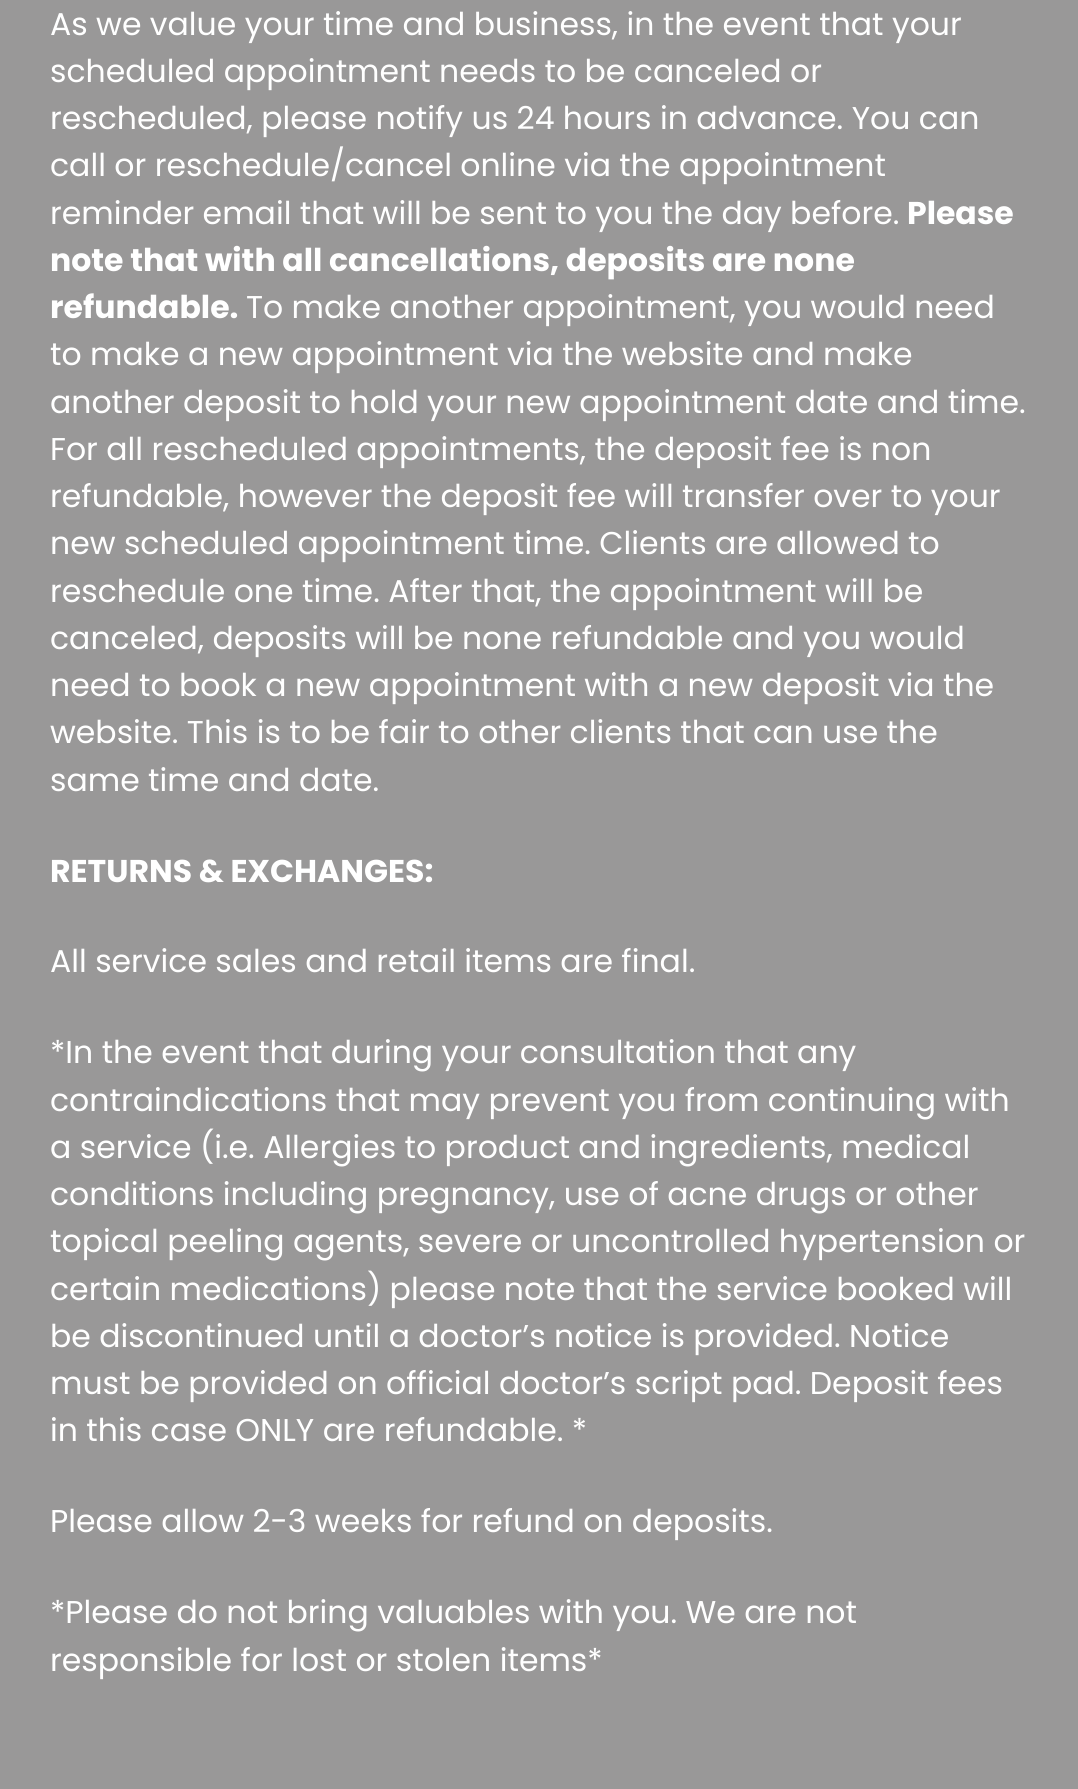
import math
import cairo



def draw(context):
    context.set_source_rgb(153 / 255, 152 / 255, 152 / 255)
    context.paint()
    context.select_font_face("Poppins")
    context.set_font_size(31.5)
    context.set_source_rgb(1, 1, 1)
    context.move_to(50, 35)
    context.show_text("As we value your time and business, in the event that your")
    context.move_to(50, 82)
    context.show_text("scheduled appointment needs to be canceled or")
    context.move_to(50, 129)
    context.show_text("rescheduled, please notify us 24 hours in advance. You can")
    context.move_to(50, 176)
    context.show_text("call or reschedule/cancel online via the appointment")
    context.move_to(50, 224)
    context.show_text("reminder email that will be sent to you the day before.")
    context.select_font_face("Poppins", cairo.FontSlant.NORMAL, cairo.FontWeight.BOLD)
    context.move_to(907, 224)
    context.show_text("Please")
    context.move_to(50, 271)
    context.show_text("note that with all cancellations, deposits are none")
    context.move_to(50, 318)
    context.show_text("refundable.")
    context.select_font_face("Poppins")
    context.move_to(246, 318)
    context.show_text("To make another appointment, you would need")
    context.move_to(50, 365)
    context.show_text("to make a new appointment via the website and make")
    context.move_to(50, 413)
    context.show_text("another deposit to hold your new appointment date and time.")
    context.move_to(50, 460)
    context.show_text("For all rescheduled appointments, the deposit fee is non")
    context.move_to(50, 507)
    context.show_text("refundable, however the deposit fee will transfer over to your")
    context.move_to(50, 554)
    context.show_text("new scheduled appointment time. Clients are allowed to")
    context.move_to(50, 602)
    context.show_text("reschedule one time. After that, the appointment will be")
    context.move_to(50, 649)
    context.show_text("canceled, deposits will be none refundable and you would")
    context.move_to(50, 696)
    context.show_text("need to book a new appointment with a new deposit via the")
    context.move_to(50, 743)
    context.show_text("website. This is to be fair to other clients that can use the")
    context.move_to(50, 791)
    context.show_text("same time and date.")
    context.select_font_face("Poppins", cairo.FontSlant.NORMAL, cairo.FontWeight.BOLD)
    context.move_to(50, 882)
    context.show_text("RETURNS & EXCHANGES:")
    context.select_font_face("Poppins")
    context.move_to(50, 972)
    context.show_text("All service sales and retail items are final.")
    context.move_to(50, 1063)
    context.show_text("*In the event that during your consultation that any")
    context.move_to(50, 1111)
    context.show_text("contraindications that may prevent you from continuing with")
    context.move_to(50, 1158)
    context.show_text("a service (i.e. Allergies to product and ingredients, medical")
    context.move_to(50, 1205)
    context.show_text("conditions including pregnancy, use of acne drugs or other")
    context.move_to(50, 1252)
    context.show_text("topical peeling agents, severe or uncontrolled hypertension or")
    context.move_to(50, 1300)
    context.show_text("certain medications) please note that the service booked will")
    context.move_to(50, 1347)
    context.show_text("be discontinued until a doctor’s notice is provided. Notice")
    context.move_to(50, 1394)
    context.show_text("must be provided on official doctor’s script pad. Deposit fees")
    context.move_to(50, 1441)
    context.show_text("in this case ONLY are refundable. *")
    context.move_to(50, 1532)
    context.show_text("Please allow 2-3 weeks for refund on deposits.")
    context.move_to(50, 1623)
    context.show_text("*Please do not bring valuables with you. We are not")
    context.move_to(50, 1671)
    context.show_text("responsible for lost or stolen items*")


surface = cairo.ImageSurface(cairo.Format.RGB24, 1078, 1789)
context = cairo.Context(surface)
options = cairo.FontOptions()
options.set_hint_metrics(cairo.HintMetrics.OFF)
options.set_hint_style(cairo.HintStyle.NONE)
context.set_font_options(options)
context.set_miter_limit(4)
draw(context)
surface.write_to_png("out.png")
